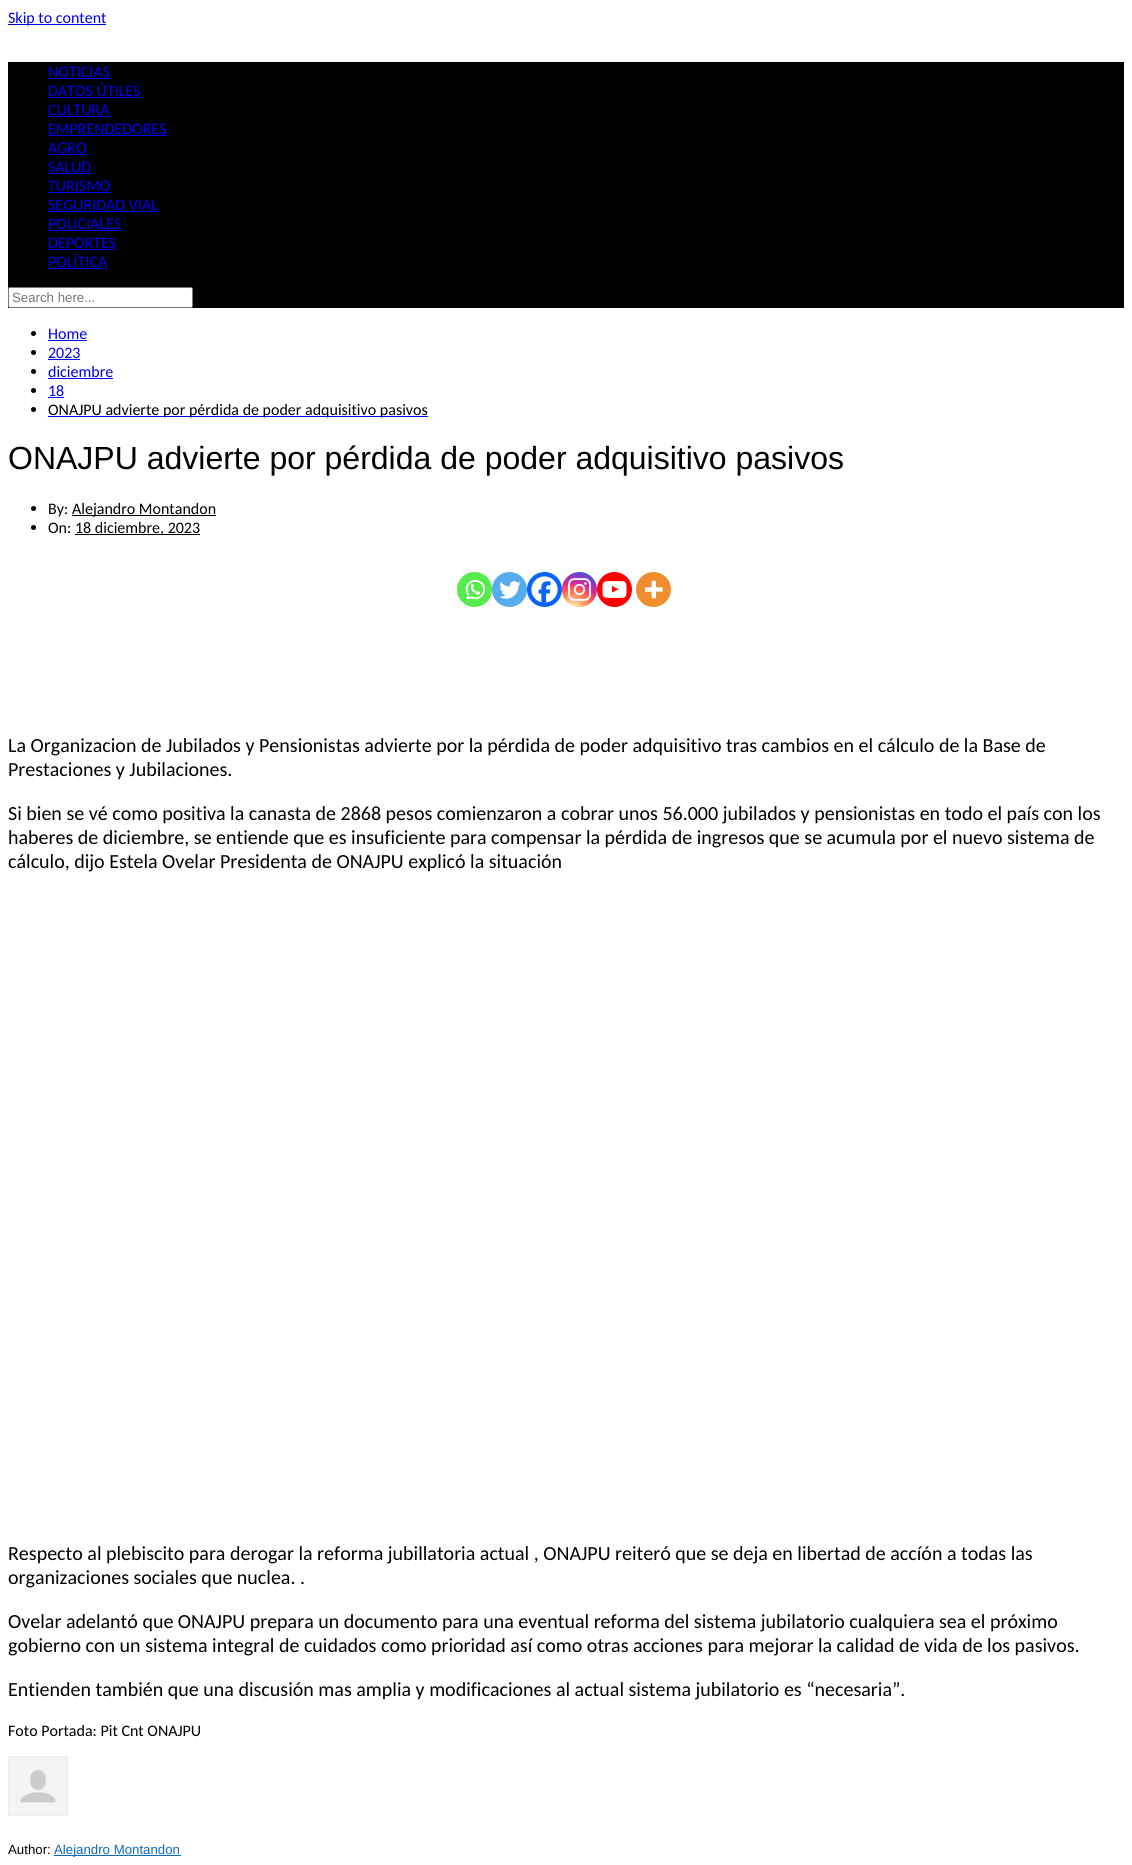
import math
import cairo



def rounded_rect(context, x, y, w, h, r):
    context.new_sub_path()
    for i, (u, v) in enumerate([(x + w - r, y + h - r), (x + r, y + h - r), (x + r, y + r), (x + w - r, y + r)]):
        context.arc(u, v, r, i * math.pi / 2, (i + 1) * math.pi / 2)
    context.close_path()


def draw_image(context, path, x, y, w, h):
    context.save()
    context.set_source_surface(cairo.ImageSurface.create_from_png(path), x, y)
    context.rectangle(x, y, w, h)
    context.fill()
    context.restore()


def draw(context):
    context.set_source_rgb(1, 1, 1)
    context.paint()
    context.set_source_rgb(0, 0, 238 / 255)
    context.rectangle(8, 24, 98, 1)
    context.fill()
    context.set_source_rgb(0, 0, 0)
    context.rectangle(8, 62, 1116, 246)
    context.fill()
    context.set_source_rgb(0, 0, 238 / 255)
    context.rectangle(48, 78, 62, 1)
    context.fill()
    context.rectangle(48, 97, 92, 1)
    context.fill()
    context.rectangle(48, 116, 62, 1)
    context.fill()
    context.rectangle(48, 135, 119, 1)
    context.fill()
    context.rectangle(48, 154, 39, 1)
    context.fill()
    context.rectangle(48, 173, 43, 1)
    context.fill()
    context.rectangle(48, 192, 62, 1)
    context.fill()
    context.rectangle(48, 211, 110, 1)
    context.fill()
    context.rectangle(48, 230, 73, 1)
    context.fill()
    context.rectangle(48, 249, 68, 1)
    context.fill()
    context.rectangle(48, 268, 59, 1)
    context.fill()
    context.set_source_rgb(1, 1, 1)
    rounded_rect(context, 8.5, 287.5, 184, 20, 1.5)
    context.fill_preserve()
    context.set_source_rgb(118 / 255, 118 / 255, 118 / 255)
    context.set_line_width(1)
    context.stroke()
    context.set_source_rgb(0, 0, 0)
    context.arc(33.5, 333.5, 2.5, 0, 2 * math.pi)
    context.fill()
    context.set_source_rgb(0, 0, 238 / 255)
    context.rectangle(48, 340, 39, 1)
    context.fill()
    context.set_source_rgb(0, 0, 0)
    context.arc(33.5, 352.5, 2.5, 0, 2 * math.pi)
    context.fill()
    context.set_source_rgb(0, 0, 238 / 255)
    context.rectangle(48, 359, 32, 1)
    context.fill()
    context.set_source_rgb(0, 0, 0)
    context.arc(33.5, 371.5, 2.5, 0, 2 * math.pi)
    context.fill()
    context.set_source_rgb(0, 0, 238 / 255)
    context.rectangle(48, 378, 65, 1)
    context.fill()
    context.set_source_rgb(0, 0, 0)
    context.arc(33.5, 390.5, 2.5, 0, 2 * math.pi)
    context.fill()
    context.set_source_rgb(0, 0, 238 / 255)
    context.rectangle(48, 397, 16, 1)
    context.fill()
    context.set_source_rgb(0, 0, 0)
    context.arc(33.5, 409.5, 2.5, 0, 2 * math.pi)
    context.fill()
    context.set_source_rgb(0, 0, 238 / 255)
    context.rectangle(48, 416, 380, 1)
    context.fill()
    context.set_source_rgb(0, 0, 0)
    context.arc(33.5, 508.5, 2.5, 0, 2 * math.pi)
    context.fill()
    context.rectangle(72, 515, 144, 1)
    context.fill()
    context.arc(33.5, 527.5, 2.5, 0, 2 * math.pi)
    context.fill()
    context.rectangle(75, 534, 125, 1)
    context.fill()
    context.set_source_rgb(85 / 255, 235 / 255, 76 / 255)
    context.arc(474.5, 589.5, 17.5, 0, 2 * math.pi)
    context.fill()
    draw_image(context, "images/1.png", 465, 579, 20, 21)
    context.set_source_rgb(85 / 255, 172 / 255, 238 / 255)
    context.arc(509.5, 589.5, 17.5, 0, 2 * math.pi)
    context.fill()
    draw_image(context, "images/2.png", 499, 581, 22, 18)
    context.set_source_rgb(7 / 255, 101 / 255, 254 / 255)
    context.arc(544.5, 589.5, 17.5, 0, 2 * math.pi)
    context.fill()
    draw_image(context, "images/3.png", 531, 576, 27, 27)
    gradient = cairo.RadialGradient(573, 609, 0, 573, 609, 45)
    gradient.add_color_stop_rgba(0, 253 / 255, 244 / 255, 151 / 255, 1)
    gradient.add_color_stop_rgba(0.05, 253 / 255, 244 / 255, 151 / 255, 1)
    gradient.add_color_stop_rgba(0.45, 253 / 255, 89 / 255, 73 / 255, 1)
    gradient.add_color_stop_rgba(0.6, 214 / 255, 36 / 255, 159 / 255, 1)
    gradient.add_color_stop_rgba(0.9, 40 / 255, 90 / 255, 235 / 255, 1)
    context.set_source(gradient)
    context.arc(579.5, 589.5, 17.5, 0, 2 * math.pi)
    context.fill()
    draw_image(context, "images/4.png", 568, 578, 23, 23)
    context.set_source_rgb(1, 0, 0)
    context.arc(614.5, 589.5, 17.5, 0, 2 * math.pi)
    context.fill()
    draw_image(context, "images/5.png", 602, 581, 25, 17)
    context.set_source_rgb(238 / 255, 142 / 255, 45 / 255)
    context.arc(653.5, 589.5, 17.5, 0, 2 * math.pi)
    context.fill()
    draw_image(context, "images/6.png", 645, 580, 18, 19)
    draw_image(context, "images/7.png", 8, 1756, 60, 60)
    context.set_source_rgb(11 / 255, 107 / 255, 191 / 255)
    context.rectangle(54, 1855, 127, 1)
    context.fill()
    context.select_font_face("Carlito")
    context.set_font_size(16)
    context.set_source_rgb(0, 0, 238 / 255)
    context.move_to(8, 23)
    context.show_text("Skip to content")
    context.move_to(48, 77)
    context.show_text("NOTICIAS")
    context.move_to(48, 96)
    context.show_text("DATOS ÚTILES")
    context.move_to(48, 115)
    context.show_text("CULTURA")
    context.move_to(48, 134)
    context.show_text("EMPRENDEDORES")
    context.move_to(48, 153)
    context.show_text("AGRO")
    context.move_to(48, 172)
    context.show_text("SALUD")
    context.move_to(48, 191)
    context.show_text("TURISMO")
    context.move_to(48, 210)
    context.show_text("SEGURIDAD VIAL")
    context.move_to(48, 229)
    context.show_text("POLICIALES")
    context.move_to(48, 248)
    context.show_text("DEPORTES")
    context.move_to(48, 267)
    context.show_text("POLÍTICA")
    context.select_font_face("Liberation Sans")
    context.set_font_size(13.25)
    context.set_source_rgb(117 / 255, 117 / 255, 117 / 255)
    context.move_to(12, 302)
    context.show_text("Search here...")
    context.select_font_face("Carlito")
    context.set_font_size(16)
    context.set_source_rgb(0, 0, 238 / 255)
    context.move_to(48, 339)
    context.show_text("Home")
    context.move_to(48, 358)
    context.show_text("2023")
    context.move_to(48, 377)
    context.show_text("diciembre")
    context.move_to(48, 396)
    context.show_text("18")
    context.set_source_rgb(0, 0, 0)
    context.move_to(48, 415)
    context.show_text("ONAJPU advierte por pérdida de poder adquisitivo pasivos")
    context.select_font_face("Liberation Sans")
    context.set_font_size(32)
    context.move_to(8, 469)
    context.show_text("ONAJPU advierte por pérdida de poder adquisitivo pasivos")
    context.select_font_face("Carlito")
    context.set_font_size(16)
    context.move_to(48, 514)
    context.show_text("By:")
    context.move_to(72, 514)
    context.show_text("Alejandro Montandon")
    context.move_to(48, 533)
    context.show_text("On:")
    context.move_to(75, 533)
    context.show_text("18 diciembre, 2023")
    context.set_font_size(20)
    context.move_to(8, 752)
    context.show_text("La Organizacion de Jubilados y Pensionistas advierte por la pérdida de poder adquisitivo tras cambios en el cálculo de la Base de")
    context.move_to(8, 776)
    context.show_text("Prestaciones y Jubilaciones.")
    context.move_to(8, 820)
    context.show_text("Si bien se vé como positiva la canasta de 2868 pesos comienzaron a cobrar unos 56.000 jubilados y pensionistas en todo el país con los")
    context.move_to(8, 844)
    context.show_text("haberes de diciembre, se entiende que es insuficiente para compensar la pérdida de ingresos que se acumula por el nuevo sistema de")
    context.move_to(8, 868)
    context.show_text("cálculo, dijo Estela Ovelar Presidenta de ONAJPU explicó la situación")
    context.move_to(8, 1560)
    context.show_text("Respecto al plebiscito para derogar la reforma jubillatoria actual , ONAJPU reiteró que se deja en libertad de accíón a todas las")
    context.move_to(8, 1584)
    context.show_text("organizaciones sociales que nuclea. .")
    context.move_to(8, 1628)
    context.show_text("Ovelar adelantó que ONAJPU prepara un documento para una eventual reforma del sistema jubilatorio cualquiera sea el próximo")
    context.move_to(8, 1652)
    context.show_text("gobierno con un sistema integral de cuidados como prioridad así como otras acciones para mejorar la calidad de vida de los pasivos.")
    context.move_to(8, 1696)
    context.show_text("Entienden también que una discusión mas amplia y modificaciones al actual sistema jubilatorio es “necesaria”.")
    context.set_font_size(16)
    context.move_to(8, 1736)
    context.show_text("Foto Portada: Pit Cnt ONAJPU")
    context.select_font_face("Liberation Sans")
    context.set_font_size(13.25)
    context.move_to(8, 1854)
    context.show_text("Author:")
    context.set_source_rgb(11 / 255, 107 / 255, 191 / 255)
    context.move_to(54, 1854)
    context.show_text("Alejandro Montandon")


surface = cairo.ImageSurface(cairo.Format.RGB24, 1132, 1865)
context = cairo.Context(surface)
options = cairo.FontOptions()
options.set_hint_metrics(cairo.HintMetrics.OFF)
options.set_hint_style(cairo.HintStyle.NONE)
context.set_font_options(options)
context.set_miter_limit(4)
draw(context)
surface.write_to_png("out.png")
